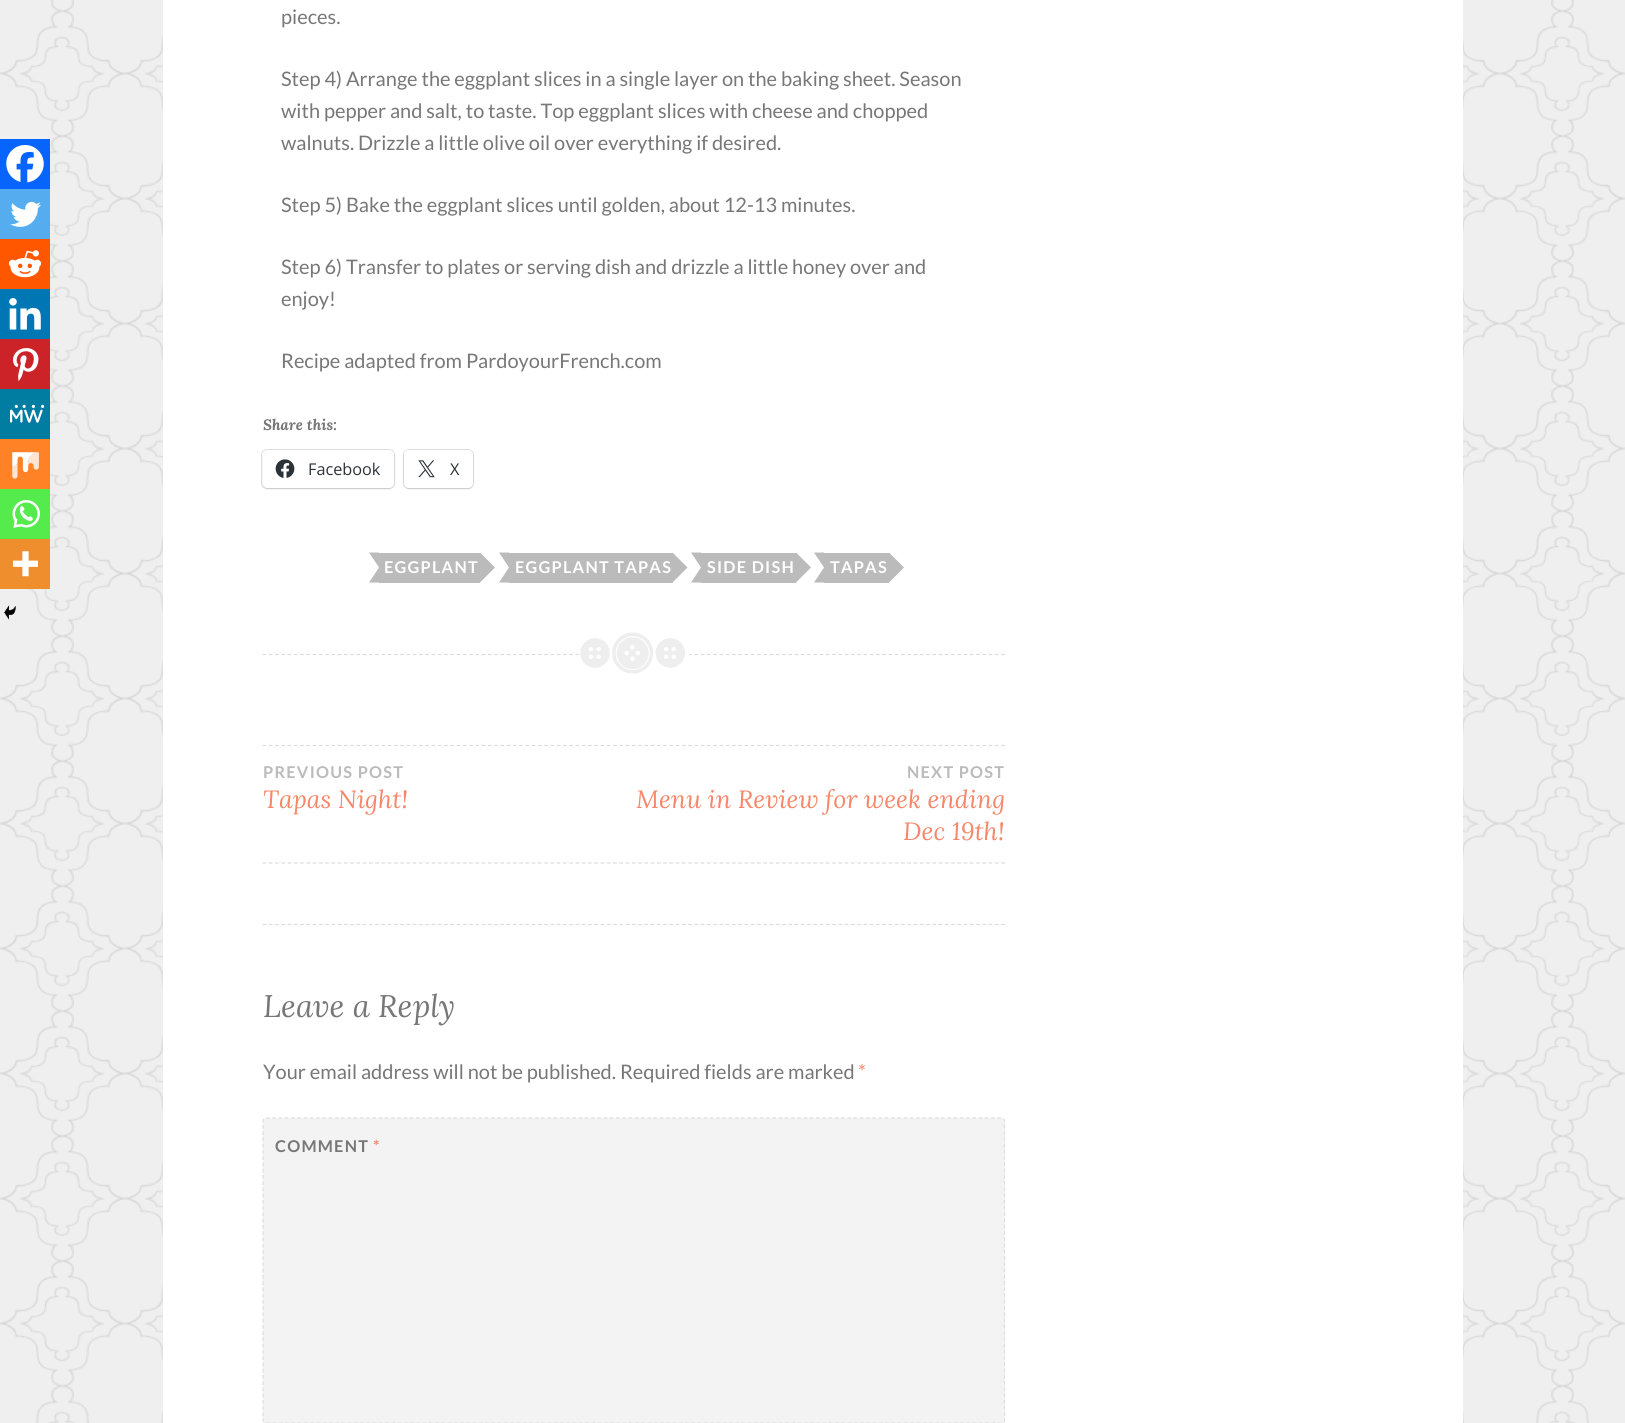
import math
import cairo



def draw_spaced(context, x, y, s, letter, word):
    context.move_to(x, y)
    for ch in s:
        context.show_text(ch)
        context.rel_move_to(letter + word * (ch == ' '), 0)


def rounded_rect(context, x, y, w, h, r):
    context.new_sub_path()
    for i, (u, v) in enumerate([(x + w - r, y + h - r), (x + r, y + h - r), (x + r, y + r), (x + w - r, y + r)]):
        context.arc(u, v, r, i * math.pi / 2, (i + 1) * math.pi / 2)
    context.close_path()


def draw_shadow(context, x, y, w, h, r, blur, alpha):
    context.push_group_with_content(cairo.Content.ALPHA)
    context.set_operator(cairo.Operator.SOURCE)
    for i in range(15, -16, -2):
        e = blur * i / 6
        if min(w, h) + 2 * e > 0:
            context.set_source_rgba(0, 0, 0, alpha * math.erfc((i - 1) / 8.5) / 2)
            rounded_rect(context, x - e, y - e, w + 2 * e, h + 2 * e, max(0, min(r + e + blur * .6, min(w, h) / 2 + e)))
            context.fill()
    context.mask(context.pop_group())


def draw_image(context, path, x, y, w, h):
    context.save()
    context.set_source_surface(cairo.ImageSurface.create_from_png(path), x, y)
    context.rectangle(x, y, w, h)
    context.fill()
    context.restore()


def draw(context):
    context.set_source_rgb(239 / 255, 239 / 255, 239 / 255)
    context.paint()
    draw_image(context, "images/1.png", 0, 0, 1625, 1423)
    context.set_source_rgb(1, 1, 1)
    context.rectangle(163, 0, 1300, 1423)
    context.fill()
    context.new_path()
    context.move_to(262.5, 654.5)
    context.line_to(1005, 654.5)
    context.set_source_rgb(221 / 255, 221 / 255, 221 / 255)
    context.set_line_width(1.2)
    context.set_dash([3.75, 2.51])
    context.stroke()
    context.set_source_rgb(7 / 255, 101 / 255, 254 / 255)
    context.rectangle(0, 139, 50, 50)
    context.fill()
    draw_image(context, "images/2.png", 6, 145, 38, 38)
    context.set_source_rgb(85 / 255, 172 / 255, 238 / 255)
    context.rectangle(0, 189, 50, 50)
    context.fill()
    draw_image(context, "images/3.png", 10, 201, 31, 26)
    context.set_source_rgb(1, 87 / 255, 0)
    context.rectangle(0, 239, 50, 50)
    context.fill()
    draw_image(context, "images/4.png", 8, 250, 34, 28)
    context.set_source_rgb(0, 119 / 255, 181 / 255)
    context.rectangle(0, 289, 50, 50)
    context.fill()
    draw_image(context, "images/5.png", 9, 298, 32, 32)
    context.set_source_rgb(204 / 255, 35 / 255, 41 / 255)
    context.rectangle(0, 339, 50, 50)
    context.fill()
    draw_image(context, "images/6.png", 13, 348, 26, 33)
    context.set_source_rgb(0, 125 / 255, 161 / 255)
    context.rectangle(0, 389, 50, 50)
    context.fill()
    draw_image(context, "images/7.png", 10, 404, 35, 19)
    context.set_source_rgb(1, 130 / 255, 38 / 255)
    context.rectangle(0, 439, 50, 50)
    context.fill()
    draw_image(context, "images/8.png", 12, 452, 27, 27)
    context.set_source_rgb(85 / 255, 235 / 255, 76 / 255)
    context.rectangle(0, 489, 50, 50)
    context.fill()
    draw_image(context, "images/9.png", 12, 500, 28, 28)
    context.set_source_rgb(238 / 255, 142 / 255, 45 / 255)
    context.rectangle(0, 539, 50, 50)
    context.fill()
    draw_image(context, "images/10.png", 12, 551, 26, 26)
    draw_image(context, "images/11.png", 4, 605, 12, 15)
    rounded_rect(context, 261.5, 449.5, 133, 39, 5.5)
    context.set_source_rgb(224 / 255, 224 / 255, 224 / 255)
    context.set_line_width(1)
    context.set_dash([])
    context.stroke()
    context.set_source_rgb(0, 0, 0)
    draw_shadow(context, 263, 451, 131, 38, 5, 1, 0.12)
    context.set_source_rgb(1, 1, 1)
    rounded_rect(context, 263, 450, 131, 38, 5)
    context.fill()
    draw_image(context, "images/12.png", 275, 459, 20, 19)
    rounded_rect(context, 403.5, 449.5, 70, 39, 5.5)
    context.set_source_rgb(224 / 255, 224 / 255, 224 / 255)
    context.stroke()
    context.set_source_rgb(0, 0, 0)
    draw_shadow(context, 404, 451, 69, 38, 5, 1, 0.12)
    context.set_source_rgb(1, 1, 1)
    rounded_rect(context, 404, 450, 69, 38, 5)
    context.fill()
    draw_image(context, "images/13.png", 418, 460, 17, 18)
    context.set_source_rgb(187 / 255, 187 / 255, 187 / 255)
    context.rectangle(379, 553, 101, 30)
    context.fill()
    context.new_path()
    context.move_to(369, 552.5)
    context.line_to(379, 552.5)
    context.line_to(379, 567.5)
    context.close_path()
    context.fill()
    context.new_path()
    context.move_to(379, 582.5)
    context.line_to(369, 582.5)
    context.line_to(379, 567.5)
    context.close_path()
    context.fill()
    context.new_path()
    context.move_to(480, 582.5)
    context.line_to(480, 552.5)
    context.line_to(495, 567.5)
    context.close_path()
    context.fill()
    context.rectangle(509, 553, 164, 30)
    context.fill()
    context.new_path()
    context.move_to(499, 552.5)
    context.line_to(509, 552.5)
    context.line_to(509, 567.5)
    context.close_path()
    context.fill()
    context.new_path()
    context.move_to(509, 582.5)
    context.line_to(499, 582.5)
    context.line_to(509, 567.5)
    context.close_path()
    context.fill()
    context.new_path()
    context.move_to(672.5, 582.5)
    context.line_to(672.5, 552.5)
    context.line_to(687.5, 567.5)
    context.close_path()
    context.fill()
    context.rectangle(701, 553, 95, 30)
    context.fill()
    context.new_path()
    context.move_to(691, 552.5)
    context.line_to(701, 552.5)
    context.line_to(701, 567.5)
    context.close_path()
    context.fill()
    context.new_path()
    context.move_to(701, 582.5)
    context.line_to(691, 582.5)
    context.line_to(701, 567.5)
    context.close_path()
    context.fill()
    context.new_path()
    context.move_to(796, 582.5)
    context.line_to(796, 552.5)
    context.line_to(811, 567.5)
    context.close_path()
    context.fill()
    context.rectangle(824, 553, 65, 30)
    context.fill()
    context.new_path()
    context.move_to(814, 552.5)
    context.line_to(824, 552.5)
    context.line_to(824, 567.5)
    context.close_path()
    context.fill()
    context.new_path()
    context.move_to(824, 582.5)
    context.line_to(814, 582.5)
    context.line_to(824, 567.5)
    context.close_path()
    context.fill()
    context.new_path()
    context.move_to(889, 582.5)
    context.line_to(889, 552.5)
    context.line_to(904, 567.5)
    context.close_path()
    context.fill()
    context.set_source_rgb(1, 1, 1)
    context.rectangle(579, 653, 110, 3)
    context.fill()
    draw_image(context, "images/14.png", 580, 632, 105, 42)
    context.new_path()
    context.move_to(262.5, 745.5)
    context.line_to(1005, 745.5)
    context.set_source_rgb(221 / 255, 221 / 255, 221 / 255)
    context.set_line_width(1.2)
    context.set_dash([3.75, 2.51])
    context.stroke()
    context.new_path()
    context.move_to(262.5, 863)
    context.line_to(1005, 863)
    context.stroke()
    context.new_path()
    context.move_to(262.5, 924.5)
    context.line_to(1005, 924.5)
    context.stroke()
    context.set_source_rgb(243 / 255, 243 / 255, 243 / 255)
    rounded_rect(context, 263, 1118, 742, 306, 4)
    context.fill()
    context.new_path()
    context.move_to(266, 1118)
    context.line_to(1001, 1118)
    context.curve_to(1003, 1118, 1004.5, 1119.5, 1004.5, 1121)
    context.line_to(1004.5, 1420)
    context.curve_to(1004.5, 1421.5, 1003, 1423, 1001, 1423)
    context.line_to(266, 1423)
    context.curve_to(264.5, 1423, 263, 1421.5, 263, 1420)
    context.line_to(263, 1121)
    context.curve_to(263, 1119.5, 264.5, 1118, 266, 1118)
    context.close_path()
    context.set_source_rgb(221 / 255, 221 / 255, 221 / 255)
    context.set_dash([3.75, 2.5])
    context.stroke()
    context.select_font_face("Lato")
    context.set_font_size(20)
    context.set_source_rgb(119 / 255, 119 / 255, 119 / 255)
    context.move_to(281, 24)
    context.show_text("pieces.")
    context.move_to(281, 86)
    context.show_text("Step 4) Arrange the eggplant slices in a single layer on the baking sheet. Season")
    context.move_to(281, 118)
    context.show_text("with pepper and salt, to taste. Top eggplant slices with cheese and chopped")
    context.move_to(281, 150)
    context.show_text("walnuts. Drizzle a little olive oil over everything if desired.")
    context.move_to(281, 212)
    context.show_text("Step 5) Bake the eggplant slices until golden, about 12-13 minutes.")
    context.move_to(281, 274)
    context.show_text("Step 6) Transfer to plates or serving dish and drizzle a little honey over and")
    context.move_to(281, 306)
    context.show_text("enjoy!")
    context.move_to(281, 368)
    context.show_text("Recipe adapted from PardoyourFrench.com")
    context.select_font_face("Lora", cairo.FontSlant.ITALIC, cairo.FontWeight.BOLD)
    context.set_font_size(15)
    context.move_to(263, 430)
    context.show_text("Share this:")
    context.select_font_face("Open Sans")
    context.set_font_size(16.25)
    context.set_source_rgb(44 / 255, 51 / 255, 56 / 255)
    context.move_to(308, 475)
    context.show_text("Facebook")
    context.move_to(450, 475)
    context.show_text("X")
    context.select_font_face("Lato", cairo.FontSlant.NORMAL, cairo.FontWeight.BOLD)
    context.set_source_rgb(1, 1, 1)
    draw_spaced(context, 384, 573, "EGGPLANT", 1.25, 0)
    draw_spaced(context, 515, 573, "EGGPLANT TAPAS", 1.25, 0)
    draw_spaced(context, 707, 573, "SIDE DISH", 1.25, 0)
    draw_spaced(context, 830, 573, "TAPAS", 1.25, 0)
    context.set_source_rgb(187 / 255, 187 / 255, 187 / 255)
    draw_spaced(context, 263, 778, "PREVIOUS POST", 1.25, 0)
    context.select_font_face("Lora", cairo.FontSlant.ITALIC)
    context.set_font_size(25)
    context.set_source_rgb(247 / 255, 135 / 255, 105 / 255)
    context.move_to(263, 808)
    context.show_text("Tapas Night!")
    context.select_font_face("Lato", cairo.FontSlant.NORMAL, cairo.FontWeight.BOLD)
    context.set_font_size(16.25)
    context.set_source_rgb(187 / 255, 187 / 255, 187 / 255)
    draw_spaced(context, 907, 778, "NEXT POST", 1.25, 0)
    context.select_font_face("Lora", cairo.FontSlant.ITALIC)
    context.set_font_size(25)
    context.set_source_rgb(247 / 255, 135 / 255, 105 / 255)
    context.move_to(636, 808)
    context.show_text("Menu in Review for week ending")
    context.move_to(903, 840)
    context.show_text("Dec 19th!")
    context.set_font_size(31.25)
    context.set_source_rgb(119 / 255, 119 / 255, 119 / 255)
    context.move_to(263, 1017)
    context.show_text("Leave a Reply")
    context.select_font_face("Lato")
    context.set_font_size(20)
    context.move_to(263, 1079)
    context.show_text("Your email address will not be published. Required fields are marked")
    context.set_source_rgb(247 / 255, 135 / 255, 105 / 255)
    context.move_to(858, 1079)
    context.show_text("*")
    context.select_font_face("Lato", cairo.FontSlant.NORMAL, cairo.FontWeight.BOLD)
    context.set_font_size(16.25)
    context.set_source_rgb(119 / 255, 119 / 255, 119 / 255)
    draw_spaced(context, 275, 1152, "COMMENT", 1.25, 0)
    context.set_source_rgb(247 / 255, 135 / 255, 105 / 255)
    draw_spaced(context, 373, 1152, "*", 1.25, 0)


surface = cairo.ImageSurface(cairo.Format.RGB24, 1625, 1423)
context = cairo.Context(surface)
options = cairo.FontOptions()
options.set_hint_metrics(cairo.HintMetrics.OFF)
options.set_hint_style(cairo.HintStyle.NONE)
context.set_font_options(options)
context.set_miter_limit(4)
draw(context)
surface.write_to_png("out.png")
